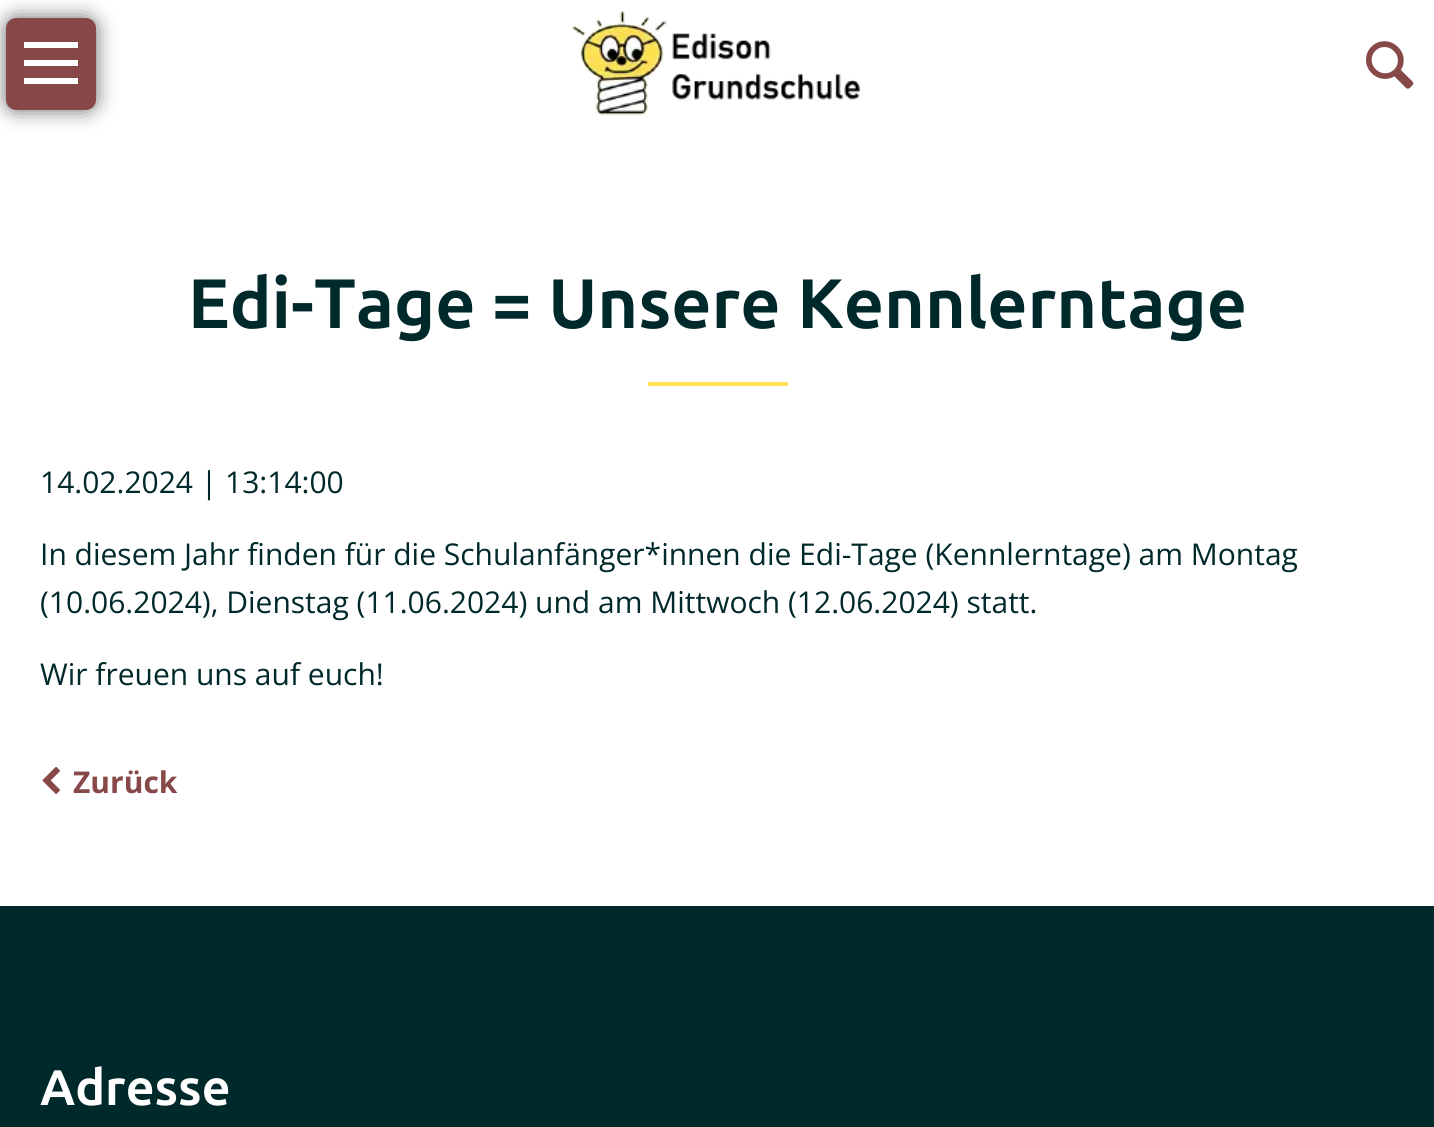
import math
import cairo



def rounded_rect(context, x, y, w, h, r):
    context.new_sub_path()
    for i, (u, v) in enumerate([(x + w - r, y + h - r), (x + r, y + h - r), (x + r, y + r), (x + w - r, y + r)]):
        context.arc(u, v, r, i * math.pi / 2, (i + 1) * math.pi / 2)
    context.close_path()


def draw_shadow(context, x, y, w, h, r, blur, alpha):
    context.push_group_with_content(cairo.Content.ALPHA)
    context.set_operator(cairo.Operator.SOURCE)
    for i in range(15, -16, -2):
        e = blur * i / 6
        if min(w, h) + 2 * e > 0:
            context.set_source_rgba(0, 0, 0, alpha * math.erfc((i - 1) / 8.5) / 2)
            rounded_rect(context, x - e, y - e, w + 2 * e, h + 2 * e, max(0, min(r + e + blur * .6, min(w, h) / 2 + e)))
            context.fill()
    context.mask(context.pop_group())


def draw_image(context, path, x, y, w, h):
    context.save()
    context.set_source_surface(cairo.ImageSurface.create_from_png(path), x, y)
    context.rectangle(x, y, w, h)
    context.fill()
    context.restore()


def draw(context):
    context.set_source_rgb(1, 1, 1)
    context.paint()
    context.set_source_rgb(0, 0, 0)
    draw_shadow(context, 6, 18, 90, 92, 10, 10, 0.6)
    context.set_source_rgb(135 / 255, 72 / 255, 72 / 255)
    rounded_rect(context, 6, 18, 90, 92, 10)
    context.fill()
    context.set_source_rgb(1, 1, 1)
    context.rectangle(24, 42, 54, 6)
    context.fill()
    context.rectangle(24, 60, 54, 6)
    context.fill()
    context.rectangle(24, 78, 54, 6)
    context.fill()
    draw_image(context, "images/1.png", 571, 10, 289, 106)
    draw_image(context, "images/2.png", 1366, 41, 48, 48)
    context.set_source_rgb(1, 223 / 255, 84 / 255)
    context.rectangle(648, 382, 140, 4)
    context.fill()
    draw_image(context, "images/3.png", 42, 767, 18, 27)
    context.set_source_rgb(0, 41 / 255, 43 / 255)
    context.rectangle(0, 906, 1434, 221)
    context.fill()
    context.select_font_face("Ubuntu", cairo.FontSlant.NORMAL, cairo.FontWeight.BOLD)
    context.set_font_size(70)
    context.move_to(188, 328)
    context.show_text("Edi-Tage = Unsere Kennlerntage")
    context.select_font_face("Open Sans")
    context.set_font_size(30)
    context.move_to(40, 493)
    context.show_text("14.02.2024 | 13:14:00")
    context.move_to(40, 565)
    context.show_text("In diesem Jahr finden für die Schulanfänger*innen die Edi-Tage (Kennlerntage) am Montag")
    context.move_to(40, 613)
    context.show_text("(10.06.2024), Dienstag (11.06.2024) und am Mittwoch (12.06.2024) statt.")
    context.move_to(40, 685)
    context.show_text("Wir freuen uns auf euch!")
    context.select_font_face("Open Sans", cairo.FontSlant.NORMAL, cairo.FontWeight.BOLD)
    context.set_source_rgb(135 / 255, 72 / 255, 72 / 255)
    context.move_to(73, 793)
    context.show_text("Zurück")
    context.select_font_face("Ubuntu", cairo.FontSlant.NORMAL, cairo.FontWeight.BOLD)
    context.set_font_size(50)
    context.set_source_rgb(1, 1, 1)
    context.move_to(40, 1105)
    context.show_text("Adresse")


surface = cairo.ImageSurface(cairo.Format.RGB24, 1434, 1127)
context = cairo.Context(surface)
options = cairo.FontOptions()
options.set_hint_metrics(cairo.HintMetrics.OFF)
options.set_hint_style(cairo.HintStyle.NONE)
context.set_font_options(options)
context.set_miter_limit(4)
draw(context)
surface.write_to_png("out.png")
